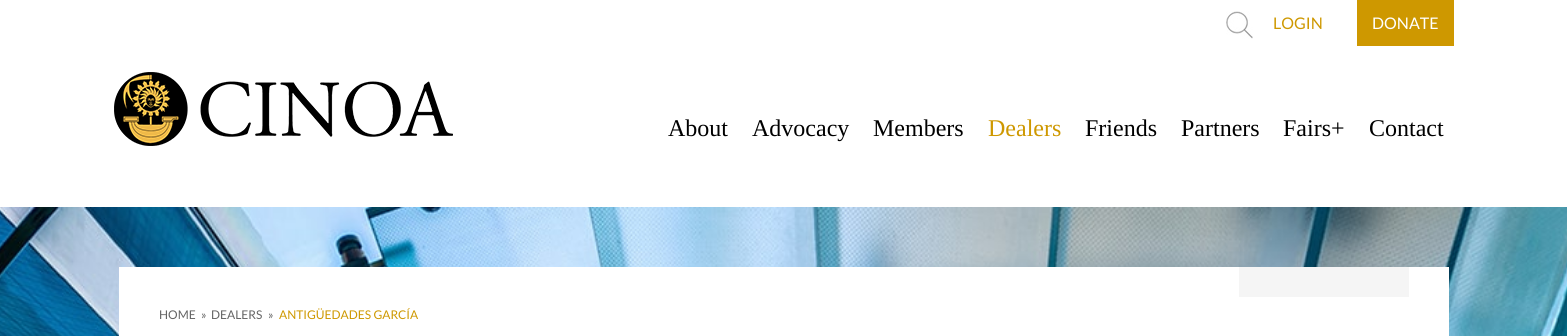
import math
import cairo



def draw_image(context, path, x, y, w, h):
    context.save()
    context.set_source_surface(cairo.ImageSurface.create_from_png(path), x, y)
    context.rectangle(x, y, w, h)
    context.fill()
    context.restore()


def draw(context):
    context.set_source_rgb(1, 1, 1)
    context.paint()
    draw_image(context, "images/1.png", 1226, 11, 27, 28)
    context.set_source_rgb(206 / 255, 152 / 255, 0)
    context.rectangle(1357, 0, 97, 46)
    context.fill()
    draw_image(context, "images/2.png", 114, 72, 339, 74)
    draw_image(context, "images/3.png", 0, 207, 1567, 129)
    context.set_source_rgb(1, 1, 1)
    context.rectangle(119, 267, 1330, 69)
    context.fill()
    context.set_source_rgb(245 / 255, 245 / 255, 245 / 255)
    context.rectangle(1239, 267, 170, 30)
    context.fill()
    context.select_font_face("Lato")
    context.set_font_size(16)
    context.set_source_rgb(206 / 255, 152 / 255, 0)
    context.move_to(1273, 29)
    context.show_text("LOGIN")
    context.set_source_rgb(1, 1, 1)
    context.move_to(1372, 29)
    context.show_text("DONATE")
    context.select_font_face("Liberation Serif")
    context.set_font_size(24)
    context.set_source_rgb(0, 0, 0)
    context.move_to(668, 136)
    context.show_text("About")
    context.move_to(752, 136)
    context.show_text("Advocacy")
    context.move_to(873, 136)
    context.show_text("Members")
    context.set_source_rgb(206 / 255, 152 / 255, 0)
    context.move_to(988, 136)
    context.show_text("Dealers")
    context.set_source_rgb(0, 0, 0)
    context.move_to(1085, 136)
    context.show_text("Friends")
    context.move_to(1181, 136)
    context.show_text("Partners")
    context.move_to(1283, 136)
    context.show_text("Fairs+")
    context.move_to(1369, 136)
    context.show_text("Contact")
    context.select_font_face("Lato")
    context.set_font_size(12)
    context.set_source_rgb(100 / 255, 100 / 255, 100 / 255)
    context.move_to(159, 319)
    context.show_text("HOME")
    context.move_to(201, 319)
    context.show_text("»")
    context.move_to(211, 319)
    context.show_text("DEALERS")
    context.move_to(268, 319)
    context.show_text("»")
    context.set_source_rgb(206 / 255, 152 / 255, 0)
    context.move_to(279, 319)
    context.show_text("ANTIGÜEDADES GARCÍA")


surface = cairo.ImageSurface(cairo.Format.RGB24, 1567, 336)
context = cairo.Context(surface)
options = cairo.FontOptions()
options.set_hint_metrics(cairo.HintMetrics.OFF)
options.set_hint_style(cairo.HintStyle.NONE)
context.set_font_options(options)
context.set_miter_limit(4)
draw(context)
surface.write_to_png("out.png")
